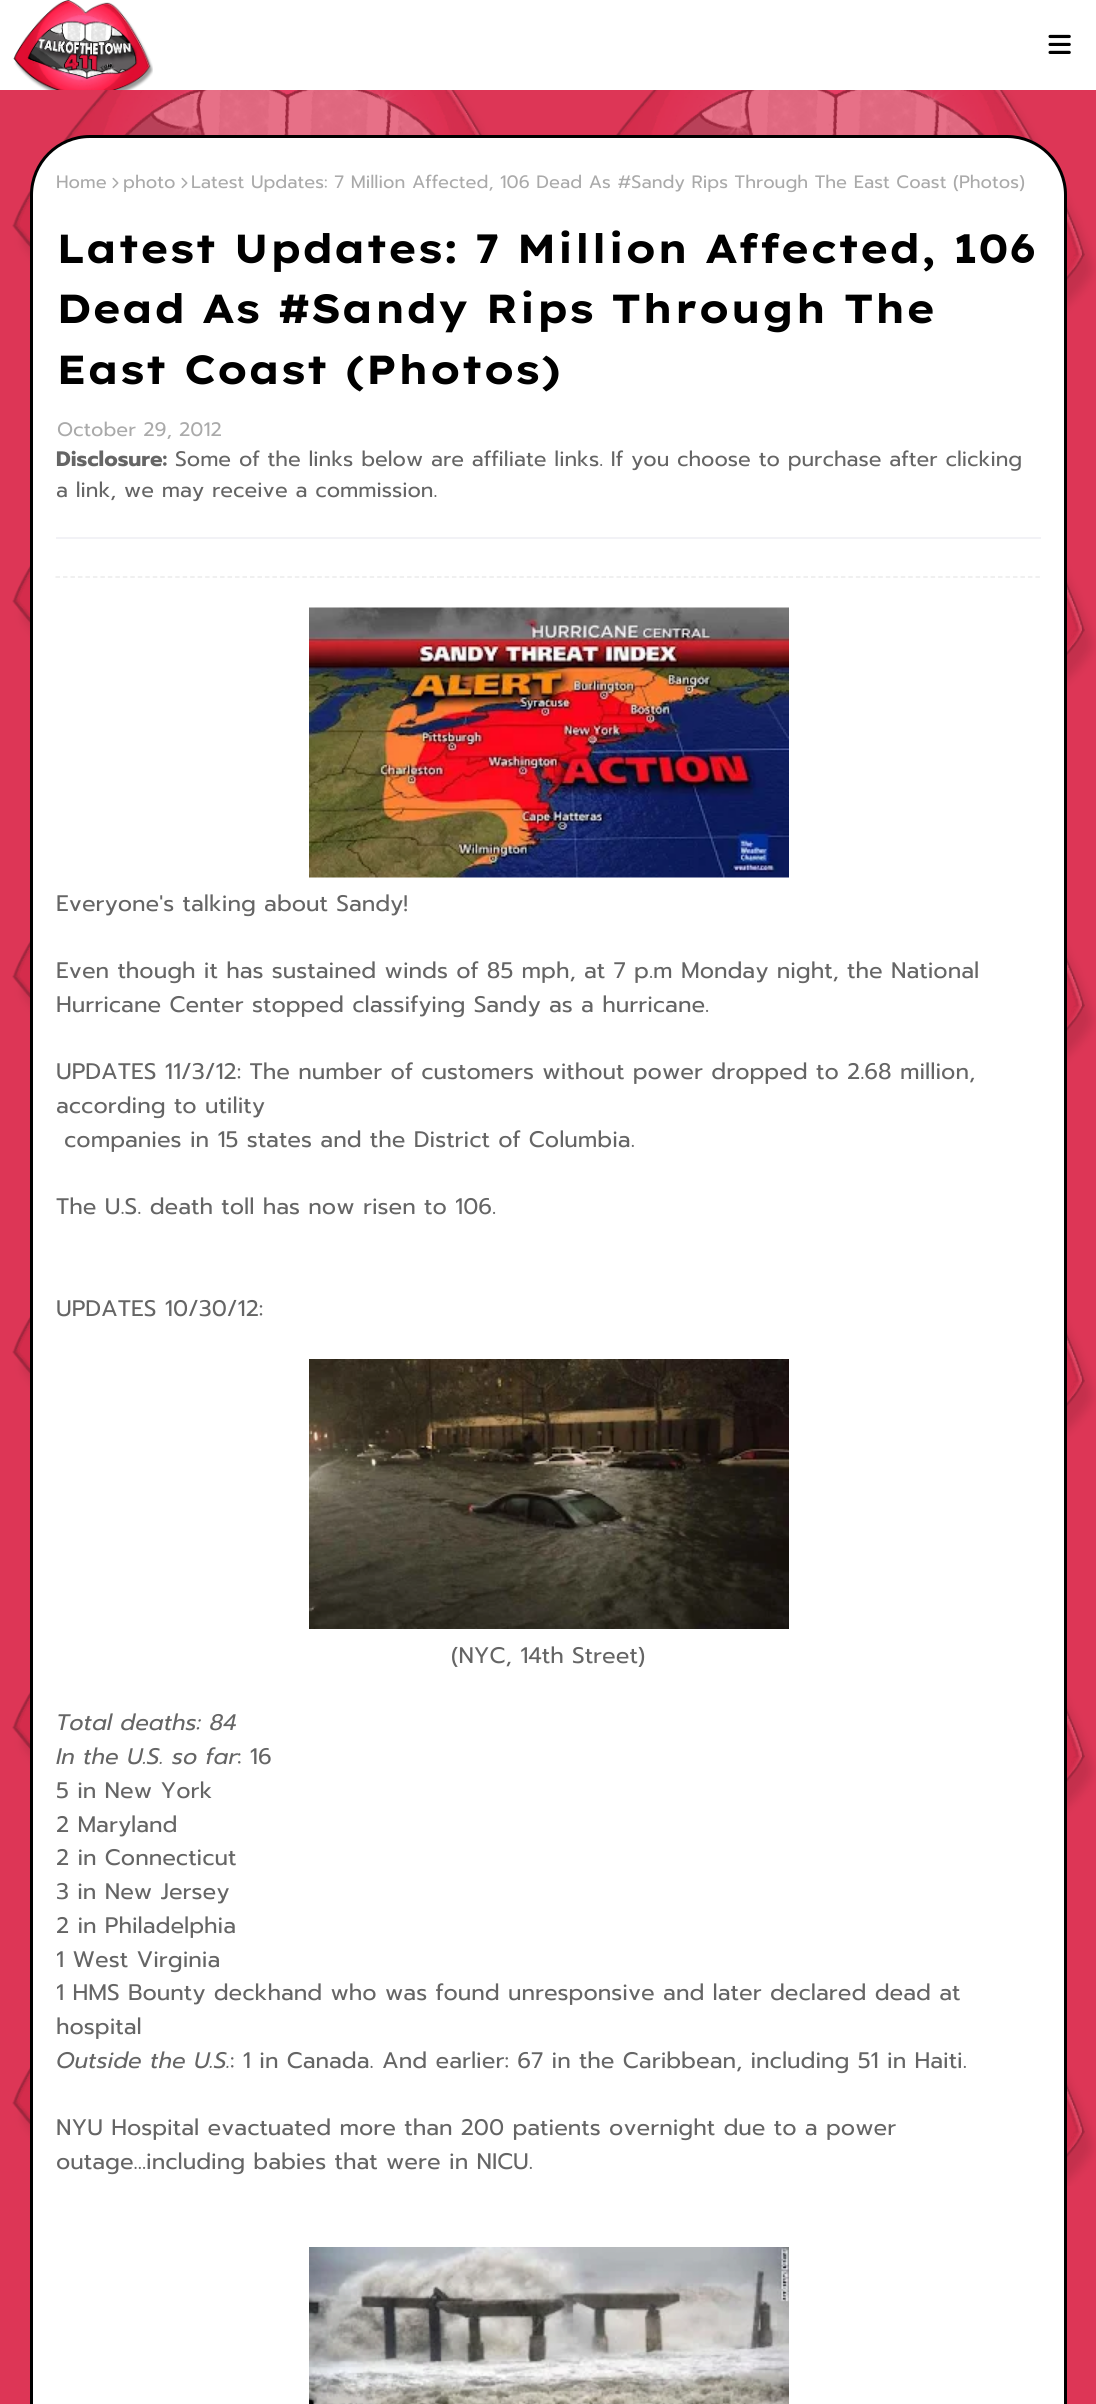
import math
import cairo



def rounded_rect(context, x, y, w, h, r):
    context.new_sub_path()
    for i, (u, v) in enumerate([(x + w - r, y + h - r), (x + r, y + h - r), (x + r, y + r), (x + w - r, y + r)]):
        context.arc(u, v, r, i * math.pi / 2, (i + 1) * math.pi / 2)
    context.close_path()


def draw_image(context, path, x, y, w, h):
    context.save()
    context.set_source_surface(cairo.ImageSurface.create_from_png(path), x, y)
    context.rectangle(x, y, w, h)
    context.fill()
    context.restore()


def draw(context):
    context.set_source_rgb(221 / 255, 54 / 255, 86 / 255)
    context.paint()
    draw_image(context, "images/1.png", 12, 90, 1084, 2096)
    context.set_source_rgb(1, 1, 1)
    context.rectangle(0, 0, 1096, 90)
    context.fill()
    draw_image(context, "images/2.png", 13, 0, 140, 90)
    draw_image(context, "images/3.png", 1048, 34, 23, 20)
    rounded_rect(context, 31.5, 136.5, 1034, 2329, 58.5)
    context.fill_preserve()
    context.set_source_rgb(0, 0, 0)
    context.set_line_width(3)
    context.stroke()
    draw_image(context, "images/4.png", 112, 177, 7, 12)
    draw_image(context, "images/4.png", 181, 177, 7, 12)
    context.set_source_rgb(242 / 255, 242 / 255, 246 / 255)
    context.rectangle(56, 537, 985, 2)
    context.fill()
    context.new_path()
    context.move_to(55.5, 577)
    context.line_to(1041, 577)
    context.set_source_rgb(235 / 255, 235 / 255, 235 / 255)
    context.set_line_width(1.5)
    context.set_dash([4.5, 2.98])
    context.stroke()
    draw_image(context, "images/5.png", 309, 607, 480, 271)
    draw_image(context, "images/6.png", 309, 1359, 480, 270)
    draw_image(context, "images/7.png", 309, 2247, 480, 157)
    context.select_font_face("Prompt")
    context.set_font_size(18)
    context.set_source_rgb(170 / 255, 170 / 255, 170 / 255)
    context.move_to(56, 188)
    context.show_text("Home")
    context.move_to(123, 188)
    context.show_text("photo")
    context.move_to(191, 188)
    context.show_text("Latest Updates: 7 Million Affected, 106 Dead As #Sandy Rips Through The East Coast (Photos)")
    context.select_font_face("Lexend Exa", cairo.FontSlant.NORMAL, cairo.FontWeight.BOLD)
    context.set_font_size(40.5)
    context.set_source_rgb(0, 0, 0)
    context.move_to(56, 263)
    context.show_text("Latest Updates: 7 Million Affected, 106")
    context.move_to(56, 323)
    context.show_text("Dead As #Sandy Rips Through The")
    context.move_to(56, 384)
    context.show_text("East Coast (Photos)")
    context.select_font_face("Prompt")
    context.set_font_size(19.5)
    context.set_source_rgb(170 / 255, 170 / 255, 170 / 255)
    context.move_to(57, 436)
    context.show_text("October 29, 2012")
    context.select_font_face("Prompt", cairo.FontSlant.NORMAL, cairo.FontWeight.BOLD)
    context.set_font_size(21)
    context.set_source_rgb(101 / 255, 101 / 255, 101 / 255)
    context.move_to(56, 466)
    context.show_text("Disclosure:")
    context.select_font_face("Prompt")
    context.move_to(175, 466)
    context.show_text("Some of the links below are affiliate links. If you choose to purchase after clicking")
    context.move_to(56, 497)
    context.show_text("a link, we may receive a commission.")
    context.set_font_size(22.5)
    context.move_to(56, 911)
    context.show_text("Everyone's talking about Sandy!")
    context.move_to(56, 978)
    context.show_text("Even though it has sustained winds of 85 mph, at 7 p.m Monday night, the National")
    context.move_to(56, 1012)
    context.show_text("Hurricane Center stopped classifying Sandy as a hurricane.")
    context.move_to(56, 1079)
    context.show_text("UPDATES 11/3/12: The number of customers without power dropped to 2.68 million,")
    context.move_to(56, 1113)
    context.show_text("according to utility")
    context.move_to(64, 1147)
    context.show_text("companies in 15 states and the District of Columbia.")
    context.move_to(56, 1214)
    context.show_text("The U.S. death toll has now risen to 106.")
    context.move_to(56, 1316)
    context.show_text("UPDATES 10/30/12:")
    context.move_to(451, 1663)
    context.show_text("(NYC, 14th Street)")
    context.select_font_face("Prompt", cairo.FontSlant.ITALIC)
    context.move_to(56, 1730)
    context.show_text("Total deaths: 84")
    context.move_to(56, 1764)
    context.show_text("In the U.S. so far")
    context.select_font_face("Prompt")
    context.move_to(237, 1764)
    context.show_text(": 16")
    context.move_to(56, 1798)
    context.show_text("5 in New York")
    context.move_to(56, 1832)
    context.show_text("2 Maryland")
    context.move_to(56, 1865)
    context.show_text("2 in Connecticut")
    context.move_to(56, 1899)
    context.show_text("3 in New Jersey")
    context.move_to(56, 1933)
    context.show_text("2 in Philadelphia")
    context.move_to(56, 1967)
    context.show_text("1 West Virginia")
    context.move_to(56, 2000)
    context.show_text("1 HMS Bounty deckhand who was found unresponsive and later declared dead at")
    context.move_to(56, 2034)
    context.show_text("hospital")
    context.select_font_face("Prompt", cairo.FontSlant.ITALIC)
    context.move_to(56, 2068)
    context.show_text("Outside the U.S.")
    context.select_font_face("Prompt")
    context.move_to(230, 2068)
    context.show_text(": 1 in Canada. And earlier: 67 in the Caribbean, including 51 in Haiti.")
    context.move_to(56, 2135)
    context.show_text("NYU Hospital evactuated more than 200 patients overnight due to a power")
    context.move_to(56, 2169)
    context.show_text("outage...including babies that were in NICU.")


surface = cairo.ImageSurface(cairo.Format.RGB24, 1096, 2404)
context = cairo.Context(surface)
options = cairo.FontOptions()
options.set_hint_metrics(cairo.HintMetrics.OFF)
options.set_hint_style(cairo.HintStyle.NONE)
context.set_font_options(options)
context.set_miter_limit(4)
draw(context)
surface.write_to_png("out.png")
